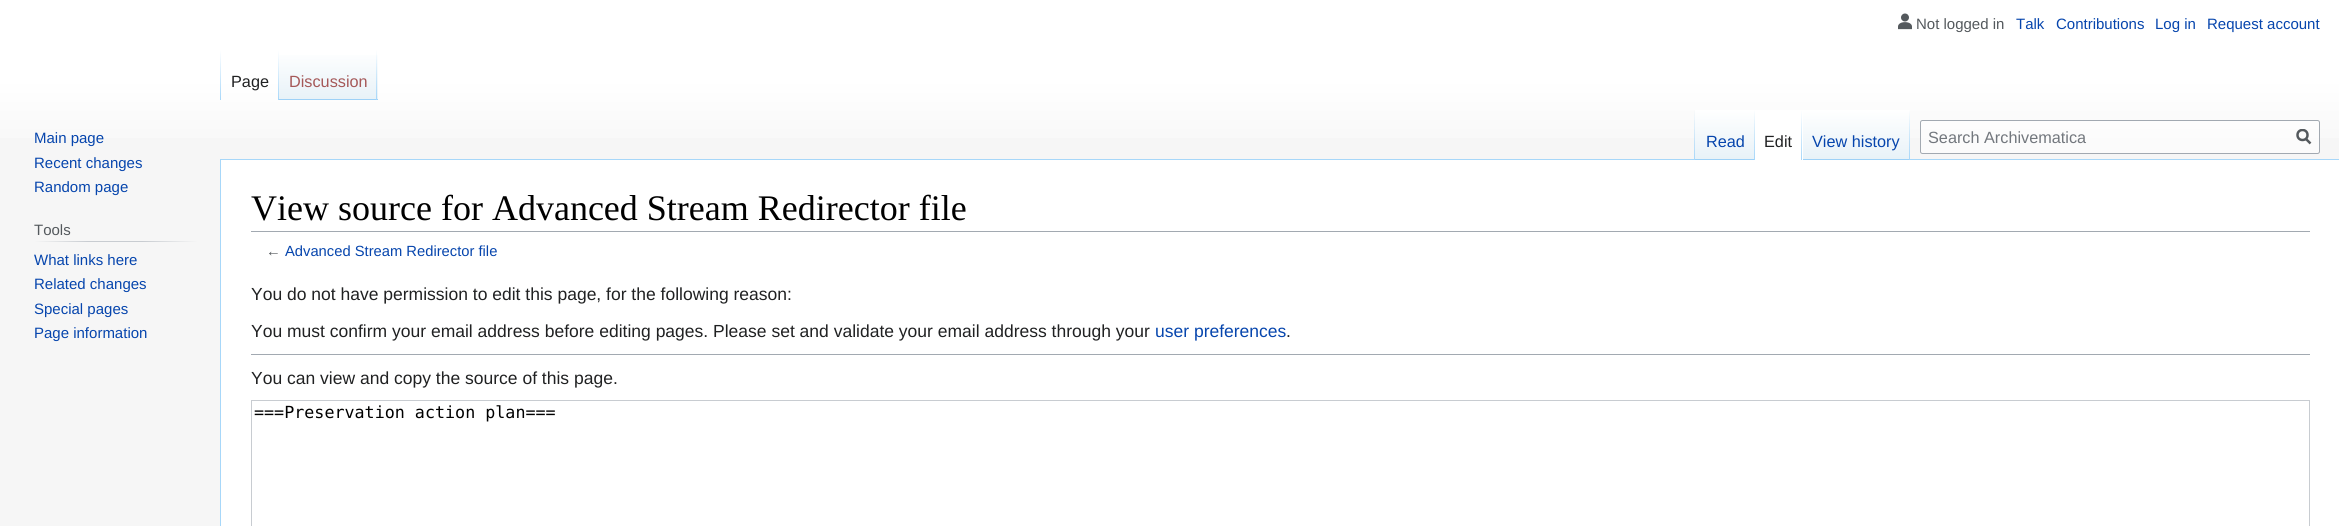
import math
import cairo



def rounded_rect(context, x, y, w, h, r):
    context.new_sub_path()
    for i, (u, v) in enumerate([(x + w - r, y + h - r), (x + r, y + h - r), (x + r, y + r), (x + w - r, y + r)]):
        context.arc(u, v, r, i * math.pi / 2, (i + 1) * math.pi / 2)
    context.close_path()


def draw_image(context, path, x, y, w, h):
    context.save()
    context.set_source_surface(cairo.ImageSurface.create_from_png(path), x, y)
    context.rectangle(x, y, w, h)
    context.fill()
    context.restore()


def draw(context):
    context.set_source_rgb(246 / 255, 246 / 255, 246 / 255)
    context.paint()
    gradient = cairo.LinearGradient(1170, 0, 1170, 160)
    gradient.add_color_stop_rgba(0.5, 1, 1, 1, 1)
    gradient.add_color_stop_rgba(1, 246 / 255, 246 / 255, 246 / 255, 1)
    context.set_source(gradient)
    context.rectangle(0, 0, 2339, 138)
    context.fill()
    draw_image(context, "images/1.png", 1898, 13, 14, 17)
    gradient = cairo.LinearGradient(221, 50, 221, 100)
    gradient.add_color_stop_rgba(0, 1, 1, 1, 1)
    gradient.add_color_stop_rgba(1, 167 / 255, 215 / 255, 249 / 255, 1)
    context.set_source(gradient)
    context.rectangle(220, 50, 1, 50)
    context.fill()
    gradient = cairo.LinearGradient(278, 50, 278, 100)
    gradient.add_color_stop_rgba(0, 1, 1, 1, 1)
    gradient.add_color_stop_rgba(1, 167 / 255, 215 / 255, 249 / 255, 1)
    context.set_source(gradient)
    context.rectangle(278, 50, 1, 50)
    context.fill()
    gradient = cairo.LinearGradient(328, 100, 328, 50)
    gradient.add_color_stop_rgba(0, 119 / 255, 193 / 255, 246 / 255, 1)
    gradient.add_color_stop_rgba(0.03, 232 / 255, 242 / 255, 248 / 255, 1)
    gradient.add_color_stop_rgba(1, 1, 1, 1, 1)
    context.set_source(gradient)
    context.rectangle(279, 55, 99, 45)
    context.fill()
    gradient = cairo.LinearGradient(377, 50, 377, 100)
    gradient.add_color_stop_rgba(0, 167 / 255, 215 / 255, 249 / 255, 0)
    gradient.add_color_stop_rgba(1, 167 / 255, 215 / 255, 249 / 255, 1)
    context.set_source(gradient)
    context.rectangle(376, 50, 1, 50)
    context.fill()
    context.set_source_rgb(167 / 255, 215 / 255, 249 / 255)
    context.rectangle(220, 159, 2119, 1)
    context.fill()
    gradient = cairo.LinearGradient(1694, 110, 1694, 160)
    gradient.add_color_stop_rgba(0, 167 / 255, 215 / 255, 249 / 255, 0)
    gradient.add_color_stop_rgba(1, 167 / 255, 215 / 255, 249 / 255, 1)
    context.set_source(gradient)
    context.rectangle(1694, 110, 1, 50)
    context.fill()
    gradient = cairo.LinearGradient(1725, 160, 1725, 110)
    gradient.add_color_stop_rgba(0, 119 / 255, 193 / 255, 246 / 255, 1)
    gradient.add_color_stop_rgba(0.03, 232 / 255, 242 / 255, 248 / 255, 1)
    gradient.add_color_stop_rgba(1, 1, 1, 1, 1)
    context.set_source(gradient)
    context.rectangle(1695, 110, 60, 50)
    context.fill()
    gradient = cairo.LinearGradient(1754, 110, 1754, 160)
    gradient.add_color_stop_rgba(0, 167 / 255, 215 / 255, 249 / 255, 0)
    gradient.add_color_stop_rgba(1, 167 / 255, 215 / 255, 249 / 255, 1)
    context.set_source(gradient)
    context.rectangle(1754, 110, 1, 50)
    context.fill()
    context.set_source_rgb(1, 1, 1)
    context.rectangle(1755, 110, 48, 50)
    context.fill()
    gradient = cairo.LinearGradient(1802, 110, 1802, 160)
    gradient.add_color_stop_rgba(0, 1, 1, 1, 1)
    gradient.add_color_stop_rgba(1, 167 / 255, 215 / 255, 249 / 255, 1)
    context.set_source(gradient)
    context.rectangle(1801, 110, 1, 50)
    context.fill()
    gradient = cairo.LinearGradient(1856, 160, 1856, 110)
    gradient.add_color_stop_rgba(0, 119 / 255, 193 / 255, 246 / 255, 1)
    gradient.add_color_stop_rgba(0.03, 232 / 255, 242 / 255, 248 / 255, 1)
    gradient.add_color_stop_rgba(1, 1, 1, 1, 1)
    context.set_source(gradient)
    context.rectangle(1803, 110, 107, 50)
    context.fill()
    gradient = cairo.LinearGradient(1909, 110, 1909, 160)
    gradient.add_color_stop_rgba(0, 167 / 255, 215 / 255, 249 / 255, 0)
    gradient.add_color_stop_rgba(1, 167 / 255, 215 / 255, 249 / 255, 1)
    context.set_source(gradient)
    context.rectangle(1909, 110, 1, 50)
    context.fill()
    context.set_source_rgba(1, 1, 1, 0.5)
    rounded_rect(context, 1920.5, 120.5, 399, 33, 2)
    context.fill_preserve()
    context.set_source_rgb(162 / 255, 169 / 255, 177 / 255)
    context.set_line_width(1)
    context.stroke()
    context.new_path()
    context.move_to(2310.5, 143.5)
    context.line_to(2305.5, 138.5)
    context.set_source_rgb(84 / 255, 89 / 255, 93 / 255)
    context.set_line_width(2.5)
    context.stroke()
    context.save()
    context.rectangle(2296, 129, 15, 16)
    context.clip()
    context.arc(2302.5, 135, 5, 0, 2 * math.pi)
    context.stroke()
    context.restore()
    gradient = cairo.LinearGradient(34, 242, 198, 242)
    gradient.add_color_stop_rgba(0, 246 / 255, 246 / 255, 246 / 255, 1)
    gradient.add_color_stop_rgba(0.33, 200 / 255, 204 / 255, 209 / 255, 1)
    gradient.add_color_stop_rgba(0.66, 200 / 255, 204 / 255, 209 / 255, 1)
    gradient.add_color_stop_rgba(1, 246 / 255, 246 / 255, 246 / 255, 1)
    context.set_source(gradient)
    context.rectangle(34, 241, 164, 1)
    context.fill()
    context.set_source_rgb(1, 1, 1)
    context.rectangle(221, 160, 2118, 366)
    context.fill()
    context.set_source_rgb(167 / 255, 215 / 255, 249 / 255)
    context.rectangle(220, 159, 1, 367)
    context.fill()
    context.set_source_rgb(162 / 255, 169 / 255, 177 / 255)
    context.rectangle(251, 231, 2059, 1)
    context.fill()
    context.rectangle(251, 354, 2059, 1)
    context.fill()
    context.rectangle(251.5, 400.5, 2058, 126)
    context.set_source_rgb(200 / 255, 204 / 255, 209 / 255)
    context.set_line_width(1)
    context.stroke()
    context.select_font_face("Liberation Sans")
    context.set_font_size(15)
    context.set_source_rgb(84 / 255, 89 / 255, 93 / 255)
    context.move_to(1916, 29)
    context.show_text("Not logged in")
    context.set_source_rgb(6 / 255, 69 / 255, 173 / 255)
    context.move_to(2016, 29)
    context.show_text("Talk")
    context.move_to(2056, 29)
    context.show_text("Contributions")
    context.move_to(2155, 29)
    context.show_text("Log in")
    context.move_to(2207, 29)
    context.show_text("Request account")
    context.set_font_size(16.25)
    context.set_source_rgb(32 / 255, 33 / 255, 34 / 255)
    context.move_to(231, 87)
    context.show_text("Page")
    context.set_source_rgb(165 / 255, 88 / 255, 88 / 255)
    context.move_to(289, 87)
    context.show_text("Discussion")
    context.set_source_rgb(6 / 255, 69 / 255, 173 / 255)
    context.move_to(1706, 147)
    context.show_text("Read")
    context.set_source_rgb(32 / 255, 33 / 255, 34 / 255)
    context.move_to(1764, 147)
    context.show_text("Edit")
    context.set_source_rgb(6 / 255, 69 / 255, 173 / 255)
    context.move_to(1812, 147)
    context.show_text("View history")
    context.set_source_rgb(114 / 255, 119 / 255, 125 / 255)
    context.move_to(1928, 143)
    context.show_text("Search Archivematica")
    context.set_font_size(15)
    context.set_source_rgb(6 / 255, 69 / 255, 173 / 255)
    context.move_to(34, 143)
    context.show_text("Main page")
    context.move_to(34, 168)
    context.show_text("Recent changes")
    context.move_to(34, 192)
    context.show_text("Random page")
    context.set_source_rgb(84 / 255, 89 / 255, 93 / 255)
    context.move_to(34, 235)
    context.show_text("Tools")
    context.set_source_rgb(6 / 255, 69 / 255, 173 / 255)
    context.move_to(34, 265)
    context.show_text("What links here")
    context.move_to(34, 289)
    context.show_text("Related changes")
    context.move_to(34, 314)
    context.show_text("Special pages")
    context.move_to(34, 338)
    context.show_text("Page information")
    context.select_font_face("Liberation Serif")
    context.set_font_size(36)
    context.set_source_rgb(0, 0, 0)
    context.move_to(251, 220)
    context.show_text("View source for Advanced Stream Redirector file")
    context.select_font_face("Liberation Sans")
    context.set_font_size(14.75)
    context.set_source_rgb(84 / 255, 89 / 255, 93 / 255)
    context.move_to(266, 256)
    context.show_text("←")
    context.set_source_rgb(6 / 255, 69 / 255, 173 / 255)
    context.move_to(285, 256)
    context.show_text("Advanced Stream Redirector file")
    context.set_font_size(17.5)
    context.set_source_rgb(32 / 255, 33 / 255, 34 / 255)
    context.move_to(251, 300)
    context.show_text("You do not have permission to edit this page, for the following reason:")
    context.move_to(251, 337)
    context.show_text("You must confirm your email address before editing pages. Please set and validate your email address through your")
    context.set_source_rgb(6 / 255, 69 / 255, 173 / 255)
    context.move_to(1155, 337)
    context.show_text("user preferences")
    context.set_source_rgb(32 / 255, 33 / 255, 34 / 255)
    context.move_to(1286, 337)
    context.show_text(".")
    context.move_to(251, 384)
    context.show_text("You can view and copy the source of this page.")
    context.select_font_face("DejaVu Sans Mono")
    context.set_font_size(16.7)
    context.set_source_rgb(0, 0, 0)
    context.move_to(254, 418)
    context.show_text("===Preservation action plan===")


surface = cairo.ImageSurface(cairo.Format.RGB24, 2339, 526)
context = cairo.Context(surface)
options = cairo.FontOptions()
options.set_hint_metrics(cairo.HintMetrics.OFF)
options.set_hint_style(cairo.HintStyle.NONE)
context.set_font_options(options)
context.set_miter_limit(4)
draw(context)
surface.write_to_png("out.png")
